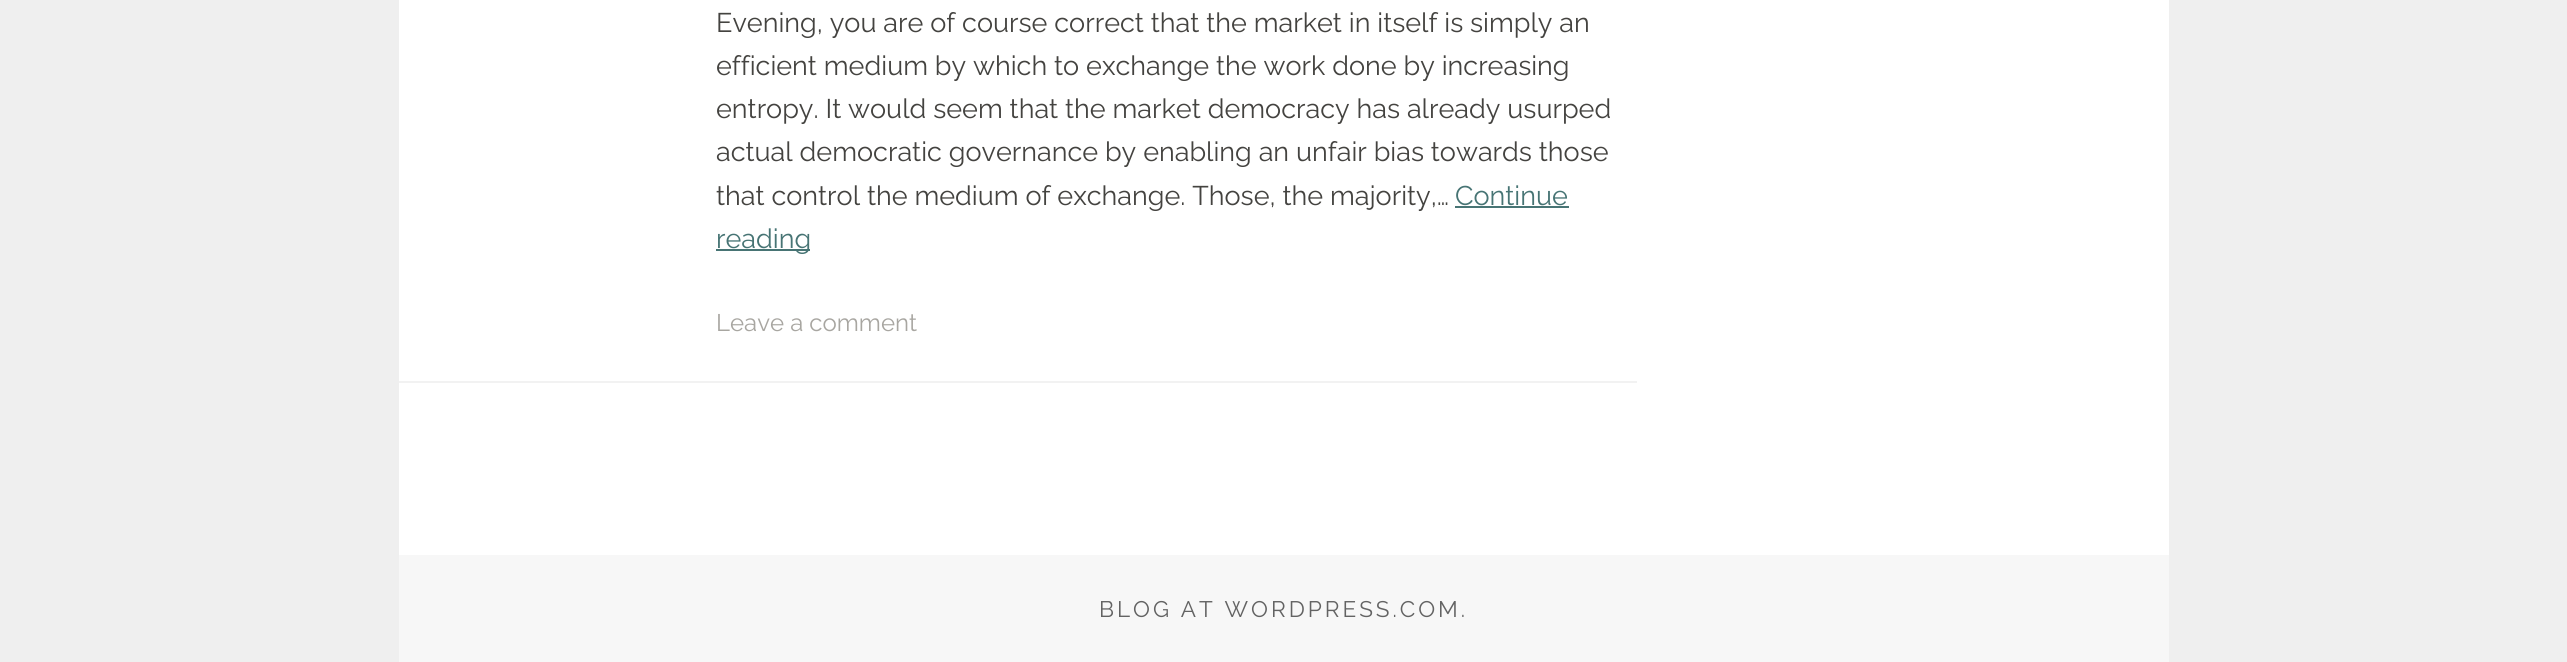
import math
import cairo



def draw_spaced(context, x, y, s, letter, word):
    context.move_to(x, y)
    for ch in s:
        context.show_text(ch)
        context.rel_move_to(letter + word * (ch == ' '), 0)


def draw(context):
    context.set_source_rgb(239 / 255, 239 / 255, 239 / 255)
    context.paint()
    context.set_source_rgb(1, 1, 1)
    context.rectangle(399, 0, 1770, 555)
    context.fill()
    context.set_source_rgb(71 / 255, 116 / 255, 116 / 255)
    context.rectangle(1455, 206, 114, 2)
    context.fill()
    context.rectangle(716, 249, 94, 2)
    context.fill()
    context.set_source_rgb(242 / 255, 242 / 255, 242 / 255)
    context.rectangle(399, 381, 1238, 2)
    context.fill()
    context.set_source_rgb(247 / 255, 247 / 255, 247 / 255)
    context.rectangle(399, 555, 1770, 107)
    context.fill()
    context.select_font_face("Raleway")
    context.set_font_size(27)
    context.set_source_rgb(68 / 255, 67 / 255, 64 / 255)
    context.move_to(716, 32)
    context.show_text("Evening, you are of course correct that the market in itself is simply an")
    context.move_to(716, 75)
    context.show_text("efficient medium by which to exchange the work done by increasing")
    context.move_to(716, 118)
    context.show_text("entropy. It would seem that the market democracy has already usurped")
    context.move_to(716, 161)
    context.show_text("actual democratic governance by enabling an unfair bias towards those")
    context.move_to(716, 205)
    context.show_text("that control the medium of exchange. Those, the majority,…")
    context.set_source_rgb(71 / 255, 116 / 255, 116 / 255)
    context.move_to(1455, 205)
    context.show_text("Continue")
    context.move_to(716, 248)
    context.show_text("reading")
    context.set_font_size(24)
    context.set_source_rgb(168 / 255, 166 / 255, 161 / 255)
    context.move_to(716, 331)
    context.show_text("Leave a comment")
    context.set_font_size(22.5)
    context.set_source_rgb(99 / 255, 99 / 255, 99 / 255)
    draw_spaced(context, 1099, 617, "BLOG AT WORDPRESS.COM.", 3, 0)


surface = cairo.ImageSurface(cairo.Format.RGB24, 2567, 662)
context = cairo.Context(surface)
options = cairo.FontOptions()
options.set_hint_metrics(cairo.HintMetrics.OFF)
options.set_hint_style(cairo.HintStyle.NONE)
context.set_font_options(options)
context.set_miter_limit(4)
draw(context)
surface.write_to_png("out.png")
